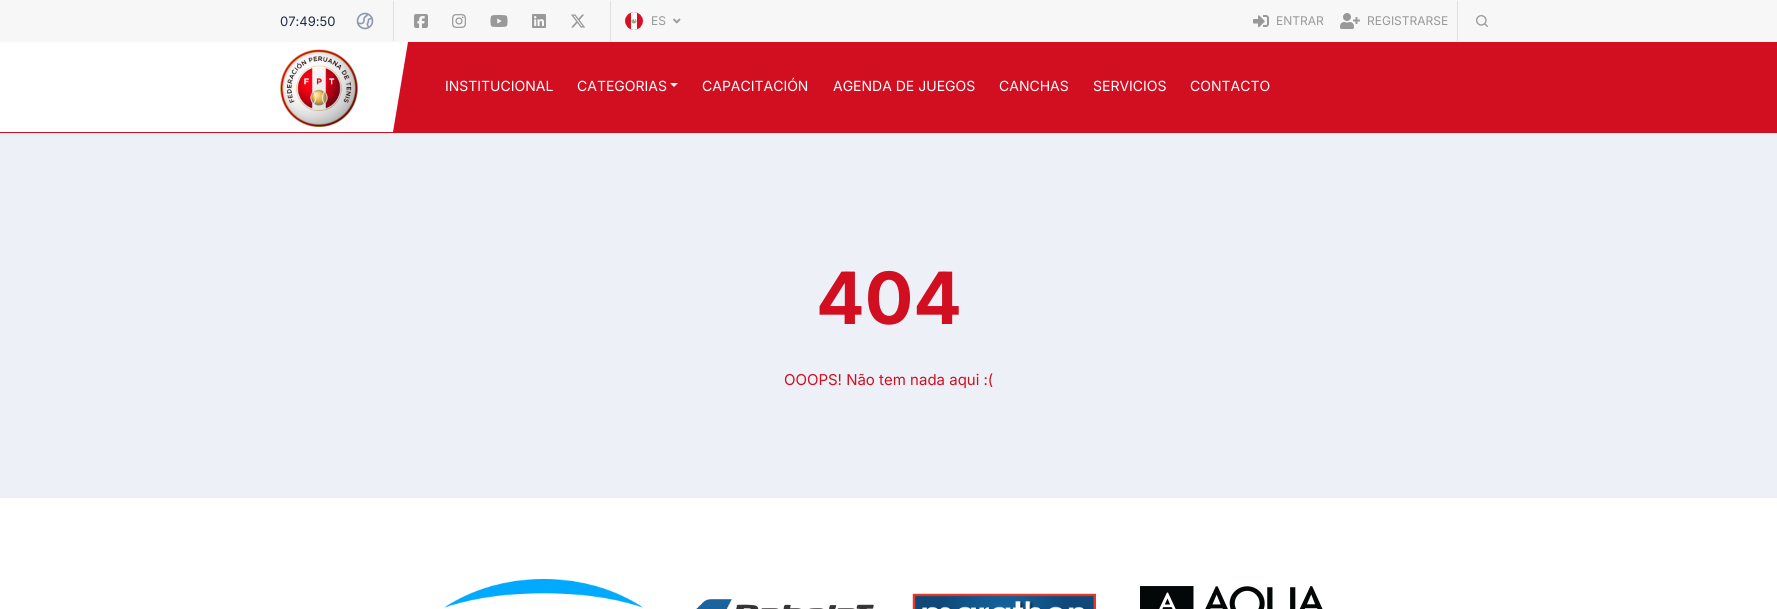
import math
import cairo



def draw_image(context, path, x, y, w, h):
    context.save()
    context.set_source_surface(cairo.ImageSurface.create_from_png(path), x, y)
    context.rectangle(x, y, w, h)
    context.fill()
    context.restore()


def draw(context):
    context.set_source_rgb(247 / 255, 247 / 255, 247 / 255)
    context.paint()
    context.set_source_rgb(224 / 255, 224 / 255, 224 / 255)
    context.rectangle(393, 1, 1, 40)
    context.fill()
    draw_image(context, "images/1.png", 356, 12, 18, 18)
    context.rectangle(610, 1, 1, 40)
    context.fill()
    draw_image(context, "images/2.png", 414, 14, 14, 14)
    draw_image(context, "images/3.png", 452, 14, 14, 14)
    draw_image(context, "images/4.png", 490, 15, 18, 12)
    draw_image(context, "images/5.png", 532, 14, 14, 14)
    draw_image(context, "images/6.png", 571, 14, 14, 14)
    draw_image(context, "images/7.png", 625, 12, 18, 18)
    draw_image(context, "images/8.png", 673, 18, 8, 6)
    draw_image(context, "images/9.png", 1253, 15, 16, 13)
    draw_image(context, "images/10.png", 1340, 13, 20, 16)
    context.rectangle(1457, 1, 1, 40)
    context.fill()
    draw_image(context, "images/11.png", 1476, 15, 12, 12)
    context.set_source_rgb(1, 1, 1)
    context.rectangle(0, 42, 408, 90)
    context.fill()
    context.set_source_rgb(210 / 255, 14 / 255, 33 / 255)
    context.rectangle(0, 132, 1777, 1)
    context.fill()
    draw_image(context, "images/12.png", 280, 49, 79, 78)
    context.rectangle(493, 42, 1284, 90)
    context.fill()
    context.new_path()
    context.move_to(408, 42)
    context.line_to(508, 42)
    context.line_to(493, 132)
    context.line_to(393, 132)
    context.close_path()
    context.fill()
    context.set_source_rgb(1, 1, 1)
    context.new_path()
    context.move_to(670, 83)
    context.line_to(678, 83)
    context.line_to(674, 87)
    context.close_path()
    context.fill()
    context.set_source_rgb(237 / 255, 241 / 255, 247 / 255)
    context.rectangle(0, 133, 1777, 365)
    context.fill()
    context.set_source_rgb(1, 1, 1)
    context.rectangle(0, 498, 1777, 111)
    context.fill()
    draw_image(context, "images/13.png", 444, 579, 200, 29)
    draw_image(context, "images/14.png", 696, 599, 178, 10)
    draw_image(context, "images/15.png", 912, 593, 184, 16)
    draw_image(context, "images/16.png", 1140, 586, 183, 23)
    context.select_font_face("Inter")
    context.set_font_size(13)
    context.set_source_rgb(34 / 255, 43 / 255, 69 / 255)
    context.move_to(280, 26)
    context.show_text("07:49:50")
    context.set_font_size(12)
    context.set_source_rgb(153 / 255, 153 / 255, 153 / 255)
    context.move_to(651, 25)
    context.show_text("ES")
    context.move_to(1276, 25)
    context.show_text("ENTRAR")
    context.move_to(1367, 25)
    context.show_text("REGISTRARSE")
    context.set_font_size(14)
    context.set_source_rgb(1, 1, 1)
    context.move_to(445, 91)
    context.show_text("INSTITUCIONAL")
    context.move_to(577, 91)
    context.show_text("CATEGORIAS")
    context.move_to(702, 91)
    context.show_text("CAPACITACIÓN")
    context.move_to(833, 91)
    context.show_text("AGENDA DE JUEGOS")
    context.move_to(999, 91)
    context.show_text("CANCHAS")
    context.move_to(1093, 91)
    context.show_text("SERVICIOS")
    context.move_to(1190, 91)
    context.show_text("CONTACTO")
    context.select_font_face("Inter", cairo.FontSlant.NORMAL, cairo.FontWeight.BOLD)
    context.set_font_size(72)
    context.set_source_rgb(210 / 255, 14 / 255, 33 / 255)
    context.move_to(816, 324)
    context.show_text("404")
    context.select_font_face("Inter")
    context.set_font_size(15)
    context.move_to(784, 385)
    context.show_text("OOOPS! Não tem nada aqui :(")


surface = cairo.ImageSurface(cairo.Format.RGB24, 1777, 609)
context = cairo.Context(surface)
options = cairo.FontOptions()
options.set_hint_metrics(cairo.HintMetrics.OFF)
options.set_hint_style(cairo.HintStyle.NONE)
context.set_font_options(options)
context.set_miter_limit(4)
draw(context)
surface.write_to_png("out.png")
